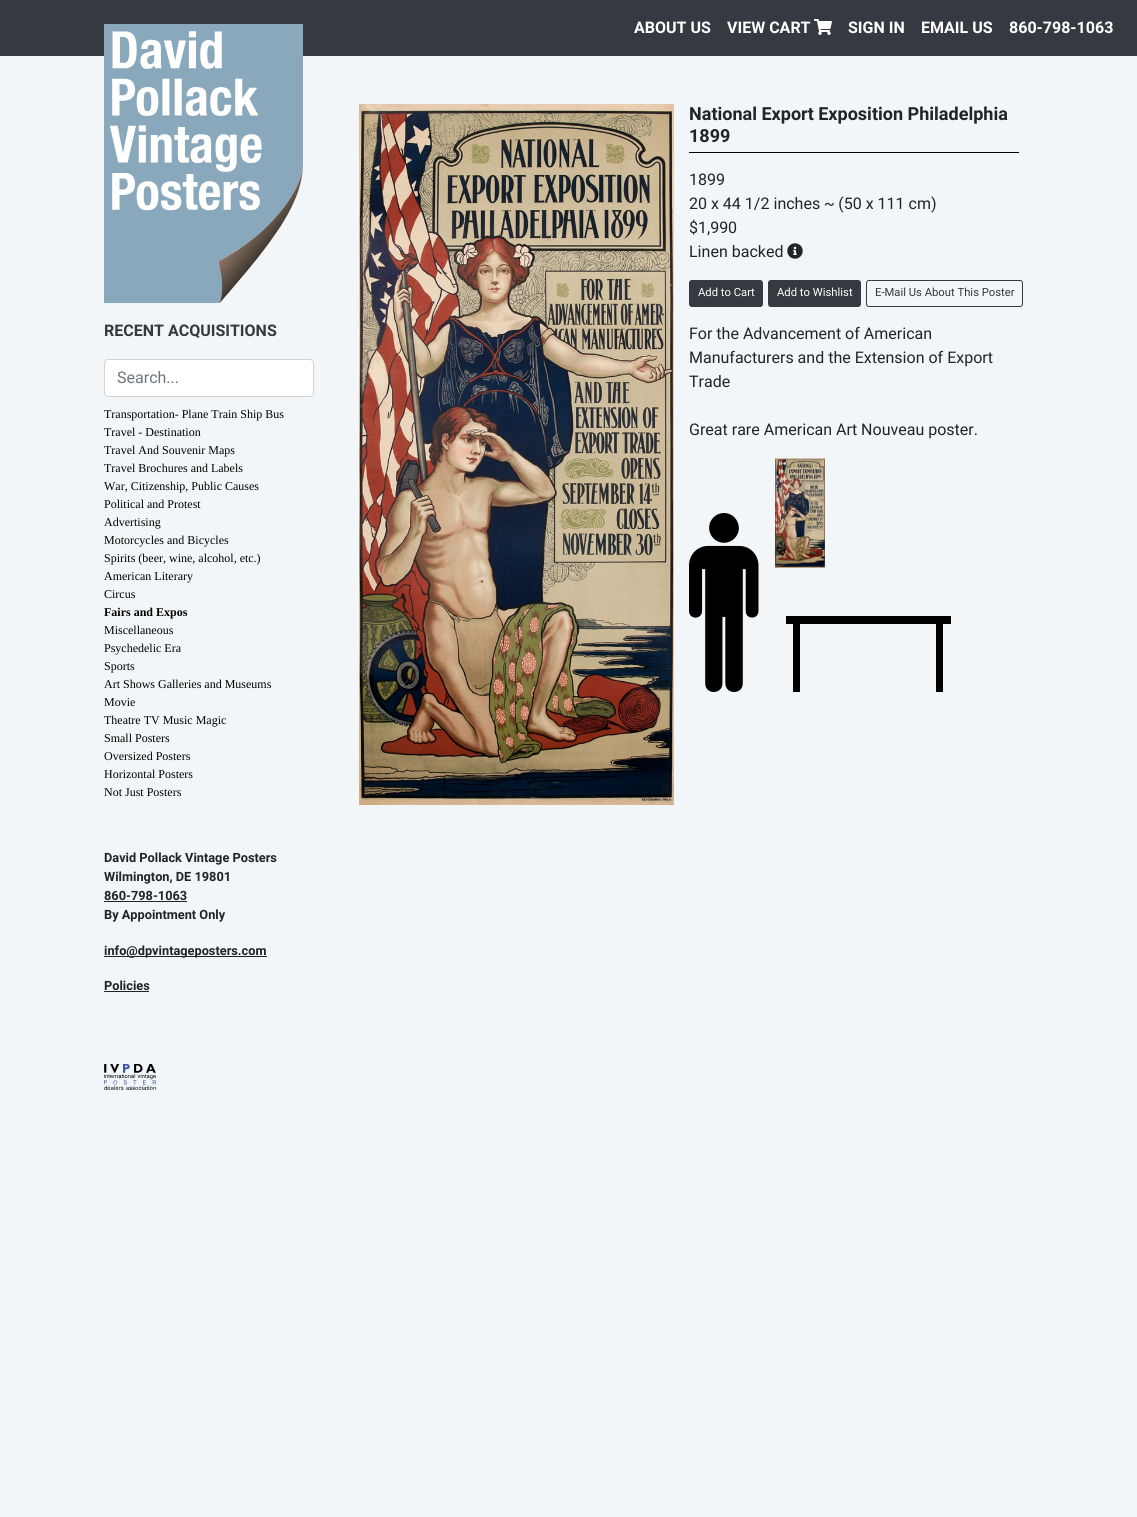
import math
import cairo



def rounded_rect(context, x, y, w, h, r):
    context.new_sub_path()
    for i, (u, v) in enumerate([(x + w - r, y + h - r), (x + r, y + h - r), (x + r, y + r), (x + w - r, y + r)]):
        context.arc(u, v, r, i * math.pi / 2, (i + 1) * math.pi / 2)
    context.close_path()


def draw_image(context, path, x, y, w, h):
    context.save()
    context.set_source_surface(cairo.ImageSurface.create_from_png(path), x, y)
    context.rectangle(x, y, w, h)
    context.fill()
    context.restore()


def draw(context):
    context.set_source_rgb(243 / 255, 246 / 255, 248 / 255)
    context.paint()
    context.set_source_rgb(52 / 255, 58 / 255, 64 / 255)
    context.rectangle(0, 0, 1137, 56)
    context.fill()
    draw_image(context, "images/1.png", 814, 19, 18, 16)
    draw_image(context, "images/2.png", 359, 104, 315, 701)
    context.set_source_rgb(0, 0, 0)
    context.rectangle(689, 152, 330, 1)
    context.fill()
    draw_image(context, "images/3.png", 787, 243, 16, 16)
    context.set_source_rgb(52 / 255, 58 / 255, 64 / 255)
    rounded_rect(context, 689.5, 280.5, 73, 26, 2.5)
    context.fill_preserve()
    context.set_line_width(1)
    context.stroke()
    rounded_rect(context, 768.5, 280.5, 92, 26, 2.5)
    context.fill_preserve()
    context.stroke()
    rounded_rect(context, 866.5, 280.5, 156, 26, 2.5)
    context.stroke()
    draw_image(context, "images/4.png", 775, 458, 50, 110)
    draw_image(context, "images/5.png", 689, 513, 262, 179)
    draw_image(context, "images/6.png", 104, 24, 199, 279)
    context.set_source_rgb(1, 1, 1)
    rounded_rect(context, 104.5, 359.5, 209, 37, 3.5)
    context.fill_preserve()
    context.set_source_rgb(206 / 255, 212 / 255, 218 / 255)
    context.stroke()
    context.set_source_rgb(33 / 255, 37 / 255, 41 / 255)
    context.rectangle(104, 901, 83, 1)
    context.fill()
    context.rectangle(104, 956, 163, 1)
    context.fill()
    context.rectangle(104, 991, 45, 1)
    context.fill()
    draw_image(context, "images/7.png", 104, 1064, 52, 26)
    context.select_font_face("Heebo", cairo.FontSlant.NORMAL, cairo.FontWeight.BOLD)
    context.set_font_size(16)
    context.set_source_rgb(1, 1, 1)
    context.move_to(634, 33)
    context.show_text("ABOUT US")
    context.move_to(727, 33)
    context.show_text("VIEW CART")
    context.move_to(848, 33)
    context.show_text("SIGN IN")
    context.move_to(921, 33)
    context.show_text("EMAIL US")
    context.move_to(1009, 33)
    context.show_text("860-798-1063")
    context.set_font_size(18)
    context.set_source_rgb(33 / 255, 37 / 255, 41 / 255)
    context.move_to(689, 120)
    context.show_text("National Export Exposition Philadelphia")
    context.move_to(689, 142)
    context.show_text("1899")
    context.select_font_face("Heebo")
    context.set_font_size(16)
    context.move_to(689, 185)
    context.show_text("1899")
    context.move_to(689, 209)
    context.show_text("20 x 44 1/2 inches ~ (50 x 111 cm)")
    context.move_to(689, 233)
    context.show_text("$1,990")
    context.move_to(689, 257)
    context.show_text("Linen backed")
    context.set_font_size(11.25)
    context.set_source_rgb(1, 1, 1)
    context.move_to(698, 296)
    context.show_text("Add to Cart")
    context.move_to(777, 296)
    context.show_text("Add to Wishlist")
    context.set_source_rgb(52 / 255, 58 / 255, 64 / 255)
    context.move_to(875, 296)
    context.show_text("E-Mail Us About This Poster")
    context.set_font_size(16)
    context.set_source_rgb(33 / 255, 37 / 255, 41 / 255)
    context.move_to(689, 339)
    context.show_text("For the Advancement of American")
    context.move_to(689, 363)
    context.show_text("Manufacturers and the Extension of Export")
    context.move_to(689, 387)
    context.show_text("Trade")
    context.move_to(689, 435)
    context.show_text("Great rare American Art Nouveau poster.")
    context.select_font_face("Heebo", cairo.FontSlant.NORMAL, cairo.FontWeight.BOLD)
    context.set_source_rgb(52 / 255, 58 / 255, 64 / 255)
    context.move_to(104, 336)
    context.show_text("RECENT ACQUISITIONS")
    context.select_font_face("Heebo")
    context.set_source_rgb(108 / 255, 117 / 255, 125 / 255)
    context.move_to(117, 383)
    context.show_text("Search...")
    context.select_font_face("Liberation Serif")
    context.set_font_size(12)
    context.set_source_rgb(0, 0, 0)
    context.move_to(104, 418)
    context.show_text("Transportation- Plane Train Ship Bus")
    context.move_to(104, 436)
    context.show_text("Travel - Destination")
    context.move_to(104, 454)
    context.show_text("Travel And Souvenir Maps")
    context.move_to(104, 472)
    context.show_text("Travel Brochures and Labels")
    context.move_to(104, 490)
    context.show_text("War, Citizenship, Public Causes")
    context.move_to(104, 508)
    context.show_text("Political and Protest")
    context.move_to(104, 526)
    context.show_text("Advertising")
    context.move_to(104, 544)
    context.show_text("Motorcycles and Bicycles")
    context.move_to(104, 562)
    context.show_text("Spirits (beer, wine, alcohol, etc.)")
    context.move_to(104, 580)
    context.show_text("American Literary")
    context.move_to(104, 598)
    context.show_text("Circus")
    context.select_font_face("Liberation Serif", cairo.FontSlant.NORMAL, cairo.FontWeight.BOLD)
    context.move_to(104, 616)
    context.show_text("Fairs and Expos")
    context.select_font_face("Liberation Serif")
    context.move_to(104, 634)
    context.show_text("Miscellaneous")
    context.move_to(104, 652)
    context.show_text("Psychedelic Era")
    context.move_to(104, 670)
    context.show_text("Sports")
    context.move_to(104, 688)
    context.show_text("Art Shows Galleries and Museums")
    context.move_to(104, 706)
    context.show_text("Movie")
    context.move_to(104, 724)
    context.show_text("Theatre TV Music Magic")
    context.move_to(104, 742)
    context.show_text("Small Posters")
    context.move_to(104, 760)
    context.show_text("Oversized Posters")
    context.move_to(104, 778)
    context.show_text("Horizontal Posters")
    context.move_to(104, 796)
    context.show_text("Not Just Posters")
    context.select_font_face("Heebo", cairo.FontSlant.NORMAL, cairo.FontWeight.BOLD)
    context.set_font_size(12.75)
    context.set_source_rgb(33 / 255, 37 / 255, 41 / 255)
    context.move_to(104, 862)
    context.show_text("David Pollack Vintage Posters")
    context.move_to(104, 881)
    context.show_text("Wilmington, DE 19801")
    context.move_to(104, 900)
    context.show_text("860-798-1063")
    context.move_to(104, 919)
    context.show_text("By Appointment Only")
    context.move_to(104, 955)
    context.show_text("info@dpvintageposters.com")
    context.move_to(104, 990)
    context.show_text("Policies")


surface = cairo.ImageSurface(cairo.Format.RGB24, 1137, 1517)
context = cairo.Context(surface)
options = cairo.FontOptions()
options.set_hint_metrics(cairo.HintMetrics.OFF)
options.set_hint_style(cairo.HintStyle.NONE)
context.set_font_options(options)
context.set_miter_limit(4)
draw(context)
surface.write_to_png("out.png")
